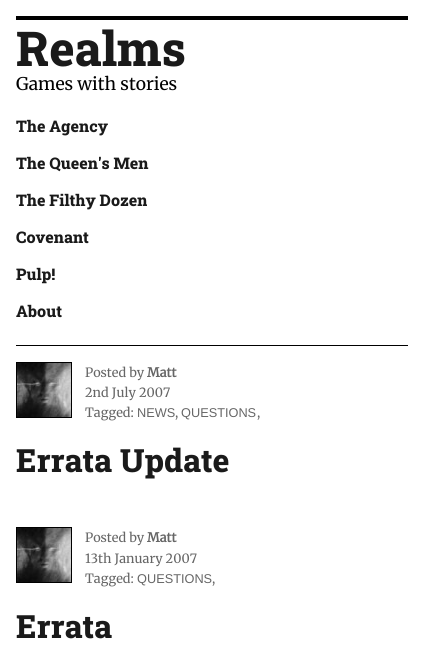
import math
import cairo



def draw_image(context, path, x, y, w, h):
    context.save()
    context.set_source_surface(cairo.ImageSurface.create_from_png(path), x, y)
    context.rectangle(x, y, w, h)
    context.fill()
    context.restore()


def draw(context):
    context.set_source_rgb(1, 1, 1)
    context.paint()
    context.set_source_rgb(0, 0, 0)
    context.rectangle(16, 16, 392, 4)
    context.fill()
    context.rectangle(16, 345, 392, 1)
    context.fill()
    context.rectangle(16.5, 362.5, 55, 55)
    context.set_line_width(1)
    context.stroke()
    draw_image(context, "images/1.png", 17, 363, 54, 54)
    context.rectangle(16.5, 527.5, 55, 55)
    context.stroke()
    draw_image(context, "images/1.png", 17, 528, 54, 54)
    context.select_font_face("Roboto Slab ExtraBold")
    context.set_font_size(48)
    context.set_source_rgb(26 / 255, 26 / 255, 26 / 255)
    context.move_to(16, 66)
    context.show_text("Realms")
    context.select_font_face("Merriweather Light")
    context.set_font_size(17.5)
    context.set_source_rgb(0, 0, 0)
    context.move_to(16, 90)
    context.show_text("Games with stories")
    context.select_font_face("Roboto Slab ExtraBold")
    context.set_font_size(16)
    context.set_source_rgb(26 / 255, 26 / 255, 26 / 255)
    context.move_to(16, 132)
    context.show_text("The Agency")
    context.move_to(16, 169)
    context.show_text("The Queen's Men")
    context.move_to(16, 206)
    context.show_text("The Filthy Dozen")
    context.move_to(16, 243)
    context.show_text("Covenant")
    context.move_to(16, 280)
    context.show_text("Pulp!")
    context.move_to(16, 317)
    context.show_text("About")
    context.select_font_face("Merriweather Light")
    context.set_font_size(12.75)
    context.set_source_rgb(102 / 255, 102 / 255, 102 / 255)
    context.move_to(85, 377)
    context.show_text("Posted by")
    context.select_font_face("Merriweather", cairo.FontSlant.NORMAL, cairo.FontWeight.BOLD)
    context.move_to(147, 377)
    context.show_text("Matt")
    context.select_font_face("Merriweather Light")
    context.move_to(85, 397)
    context.show_text("2nd July 2007")
    context.move_to(85, 417)
    context.show_text("Tagged:")
    context.select_font_face("Liberation Sans")
    context.move_to(137, 417)
    context.show_text("NEWS")
    context.select_font_face("Merriweather Light")
    context.move_to(175, 417)
    context.show_text(",")
    context.select_font_face("Liberation Sans")
    context.move_to(181, 417)
    context.show_text("QUESTIONS")
    context.select_font_face("Merriweather Light")
    context.move_to(257, 417)
    context.show_text(",")
    context.select_font_face("Roboto Slab ExtraBold")
    context.set_font_size(32)
    context.set_source_rgb(26 / 255, 26 / 255, 26 / 255)
    context.move_to(16, 472)
    context.show_text("Errata Update")
    context.select_font_face("Merriweather Light")
    context.set_font_size(12.75)
    context.set_source_rgb(102 / 255, 102 / 255, 102 / 255)
    context.move_to(85, 542)
    context.show_text("Posted by")
    context.select_font_face("Merriweather", cairo.FontSlant.NORMAL, cairo.FontWeight.BOLD)
    context.move_to(147, 542)
    context.show_text("Matt")
    context.select_font_face("Merriweather Light")
    context.move_to(85, 563)
    context.show_text("13th January 2007")
    context.move_to(85, 583)
    context.show_text("Tagged:")
    context.select_font_face("Liberation Sans")
    context.move_to(137, 583)
    context.show_text("QUESTIONS")
    context.select_font_face("Merriweather Light")
    context.move_to(212, 583)
    context.show_text(",")
    context.select_font_face("Roboto Slab ExtraBold")
    context.set_font_size(32)
    context.set_source_rgb(26 / 255, 26 / 255, 26 / 255)
    context.move_to(16, 638)
    context.show_text("Errata")


surface = cairo.ImageSurface(cairo.Format.RGB24, 424, 667)
context = cairo.Context(surface)
options = cairo.FontOptions()
options.set_hint_metrics(cairo.HintMetrics.OFF)
options.set_hint_style(cairo.HintStyle.NONE)
context.set_font_options(options)
context.set_miter_limit(4)
draw(context)
surface.write_to_png("out.png")
